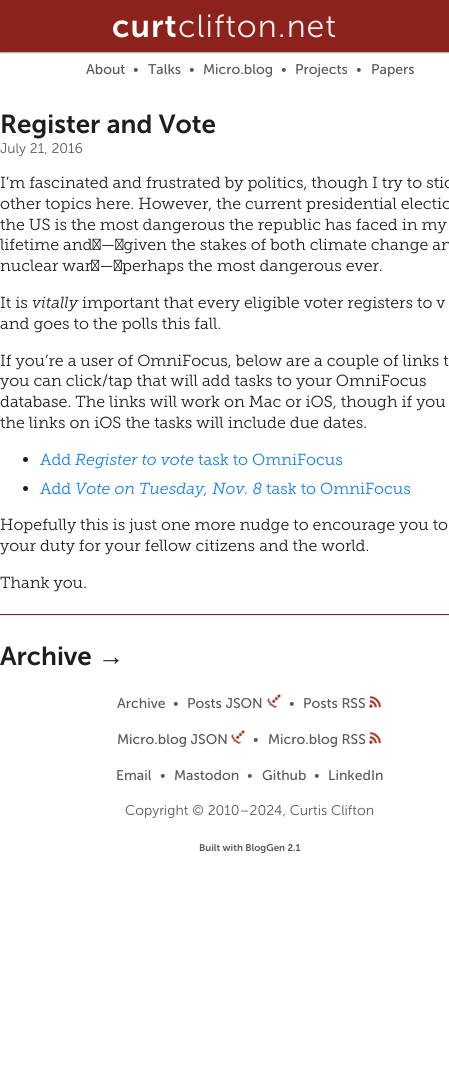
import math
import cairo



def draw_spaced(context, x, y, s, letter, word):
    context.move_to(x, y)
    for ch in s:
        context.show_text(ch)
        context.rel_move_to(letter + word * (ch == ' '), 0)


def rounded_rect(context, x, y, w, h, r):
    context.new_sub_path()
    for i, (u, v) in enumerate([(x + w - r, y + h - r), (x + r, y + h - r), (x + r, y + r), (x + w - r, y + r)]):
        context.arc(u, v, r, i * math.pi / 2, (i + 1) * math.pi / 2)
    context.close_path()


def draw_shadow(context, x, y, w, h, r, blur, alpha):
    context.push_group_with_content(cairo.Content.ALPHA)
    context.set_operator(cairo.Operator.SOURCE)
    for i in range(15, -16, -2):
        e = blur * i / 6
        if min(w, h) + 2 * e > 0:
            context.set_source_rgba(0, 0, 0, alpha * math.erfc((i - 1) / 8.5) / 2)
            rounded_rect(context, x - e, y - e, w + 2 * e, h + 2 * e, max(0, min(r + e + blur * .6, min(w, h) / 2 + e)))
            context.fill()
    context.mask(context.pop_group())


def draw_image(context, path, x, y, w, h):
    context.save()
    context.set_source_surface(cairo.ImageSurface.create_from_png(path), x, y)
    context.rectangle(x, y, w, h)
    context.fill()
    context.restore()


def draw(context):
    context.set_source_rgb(1, 1, 1)
    context.paint()
    context.set_source_rgb(168 / 255, 168 / 255, 168 / 255)
    draw_shadow(context, 0, 1, 449, 52, 0, 0.5, 1)
    context.set_source_rgb(140 / 255, 34 / 255, 27 / 255)
    context.rectangle(0, 0, 449, 52)
    context.fill()
    context.set_source_rgb(30 / 255, 30 / 255, 30 / 255)
    context.arc(25.5, 459.5, 2.5, 0, 2 * math.pi)
    context.fill()
    context.arc(25.5, 488.5, 2.5, 0, 2 * math.pi)
    context.fill()
    context.set_source_rgb(237 / 255, 237 / 255, 237 / 255)
    context.rectangle(0, 615, 449, 1)
    context.fill()
    context.set_source_rgb(140 / 255, 34 / 255, 27 / 255)
    context.rectangle(0, 614, 449, 1)
    context.fill()
    draw_image(context, "images/1.png", 267, 694, 14, 14)
    draw_image(context, "images/2.png", 369, 695, 13, 13)
    draw_image(context, "images/3.png", 231, 730, 14, 14)
    draw_image(context, "images/2.png", 369, 731, 13, 13)
    context.select_font_face("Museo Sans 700 SemiBold")
    context.set_font_size(32)
    context.set_source_rgb(1, 1, 1)
    draw_spaced(context, 112, 37, "curt", 1, 0)
    context.select_font_face("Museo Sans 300 Light")
    context.set_source_rgb(237 / 255, 237 / 255, 237 / 255)
    draw_spaced(context, 178, 37, "clifton.net", 1, 0)
    context.select_font_face("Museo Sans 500")
    context.set_font_size(14)
    context.set_source_rgb(88 / 255, 88 / 255, 88 / 255)
    context.move_to(86, 74)
    context.show_text("About")
    context.select_font_face("Museo Sans 300 Light")
    context.move_to(133, 74)
    context.show_text("•")
    context.select_font_face("Museo Sans 500")
    context.move_to(148, 74)
    context.show_text("Talks")
    context.select_font_face("Museo Sans 300 Light")
    context.move_to(189, 74)
    context.show_text("•")
    context.select_font_face("Museo Sans 500")
    context.move_to(203, 74)
    context.show_text("Micro.blog")
    context.select_font_face("Museo Sans 300 Light")
    context.move_to(281, 74)
    context.show_text("•")
    context.select_font_face("Museo Sans 500")
    context.move_to(295, 74)
    context.show_text("Projects")
    context.select_font_face("Museo Sans 300 Light")
    context.move_to(356, 74)
    context.show_text("•")
    context.select_font_face("Museo Sans 500")
    context.move_to(371, 74)
    context.show_text("Papers")
    context.select_font_face("Museo Sans 700 SemiBold")
    context.set_font_size(26)
    context.set_source_rgb(30 / 255, 30 / 255, 30 / 255)
    context.move_to(0, 133)
    context.show_text("Register and Vote")
    context.select_font_face("Museo Sans 300 Light")
    context.set_font_size(14)
    context.set_source_rgb(88 / 255, 88 / 255, 88 / 255)
    context.move_to(0, 153)
    context.show_text("July 21, 2016")
    context.select_font_face("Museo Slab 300 Light")
    context.set_font_size(16)
    context.set_source_rgb(30 / 255, 30 / 255, 30 / 255)
    context.move_to(0, 188)
    context.show_text("I’m fascinated and frustrated by politics, though I try to stic")
    context.move_to(0, 209)
    context.show_text("other topics here. However, the current presidential electio")
    context.move_to(0, 230)
    context.show_text("the US is the most dangerous the republic has faced in my")
    context.move_to(0, 250)
    context.show_text("lifetime and — given the stakes of both climate change and")
    context.move_to(0, 271)
    context.show_text("nuclear war — perhaps the most dangerous ever.")
    context.move_to(0, 308)
    context.show_text("It is")
    context.select_font_face("Museo Slab 300 Light", cairo.FontSlant.ITALIC)
    context.move_to(32, 308)
    context.show_text("vitally")
    context.select_font_face("Museo Slab 300 Light")
    context.move_to(82, 308)
    context.show_text("important that every eligible voter registers to v")
    context.move_to(0, 329)
    context.show_text("and goes to the polls this fall.")
    context.move_to(0, 366)
    context.show_text("If you’re a user of OmniFocus, below are a couple of links t")
    context.move_to(0, 386)
    context.show_text("you can click/tap that will add tasks to your OmniFocus")
    context.move_to(0, 407)
    context.show_text("database. The links will work on Mac or iOS, though if you")
    context.move_to(0, 428)
    context.show_text("the links on iOS the tasks will include due dates.")
    context.set_source_rgb(18 / 255, 128 / 255, 237 / 255)
    context.move_to(40, 465)
    context.show_text("Add")
    context.select_font_face("Museo Slab 300 Light", cairo.FontSlant.ITALIC)
    context.move_to(75, 465)
    context.show_text("Register to vote")
    context.select_font_face("Museo Slab 300 Light")
    context.move_to(198, 465)
    context.show_text("task to OmniFocus")
    context.move_to(40, 494)
    context.show_text("Add")
    context.select_font_face("Museo Slab 300 Light", cairo.FontSlant.ITALIC)
    context.move_to(75, 494)
    context.show_text("Vote on Tuesday, Nov. 8")
    context.select_font_face("Museo Slab 300 Light")
    context.move_to(266, 494)
    context.show_text("task to OmniFocus")
    context.set_source_rgb(30 / 255, 30 / 255, 30 / 255)
    context.move_to(0, 530)
    context.show_text("Hopefully this is just one more nudge to encourage you to")
    context.move_to(0, 551)
    context.show_text("your duty for your fellow citizens and the world.")
    context.move_to(0, 588)
    context.show_text("Thank you.")
    context.select_font_face("Museo Sans 700 SemiBold")
    context.set_font_size(26)
    context.move_to(0, 665)
    context.show_text("Archive")
    context.select_font_face("Liberation Sans", cairo.FontSlant.NORMAL, cairo.FontWeight.BOLD)
    context.move_to(98, 665)
    context.show_text("→")
    context.select_font_face("Museo Sans 500")
    context.set_font_size(14)
    context.set_source_rgb(88 / 255, 88 / 255, 88 / 255)
    context.move_to(117, 708)
    context.show_text("Archive")
    context.select_font_face("Museo Sans 300 Light")
    context.move_to(173, 708)
    context.show_text("•")
    context.select_font_face("Museo Sans 500")
    context.move_to(187, 708)
    context.show_text("Posts JSON")
    context.select_font_face("Museo Sans 300 Light")
    context.move_to(289, 708)
    context.show_text("•")
    context.select_font_face("Museo Sans 500")
    context.move_to(303, 708)
    context.show_text("Posts RSS")
    context.move_to(117, 744)
    context.show_text("Micro.blog JSON")
    context.select_font_face("Museo Sans 300 Light")
    context.move_to(253, 744)
    context.show_text("•")
    context.select_font_face("Museo Sans 500")
    context.move_to(268, 744)
    context.show_text("Micro.blog RSS")
    context.move_to(116, 780)
    context.show_text("Email")
    context.select_font_face("Museo Sans 300 Light")
    context.move_to(160, 780)
    context.show_text("•")
    context.select_font_face("Museo Sans 500")
    context.move_to(174, 780)
    context.show_text("Mastodon")
    context.select_font_face("Museo Sans 300 Light")
    context.move_to(247, 780)
    context.show_text("•")
    context.select_font_face("Museo Sans 500")
    context.move_to(262, 780)
    context.show_text("Github")
    context.select_font_face("Museo Sans 300 Light")
    context.move_to(314, 780)
    context.show_text("•")
    context.select_font_face("Museo Sans 500")
    context.move_to(328, 780)
    context.show_text("LinkedIn")
    context.select_font_face("Museo Sans 300 Light")
    context.move_to(125, 815)
    context.show_text("Copyright © 2010–2024, Curtis Clifton")
    context.select_font_face("Museo Sans 700 SemiBold")
    context.set_font_size(9.75)
    context.move_to(199, 851)
    context.show_text("Built with BlogGen 2.1")


surface = cairo.ImageSurface(cairo.Format.RGB24, 449, 1075)
context = cairo.Context(surface)
options = cairo.FontOptions()
options.set_hint_metrics(cairo.HintMetrics.OFF)
options.set_hint_style(cairo.HintStyle.NONE)
context.set_font_options(options)
context.set_miter_limit(4)
draw(context)
surface.write_to_png("out.png")
